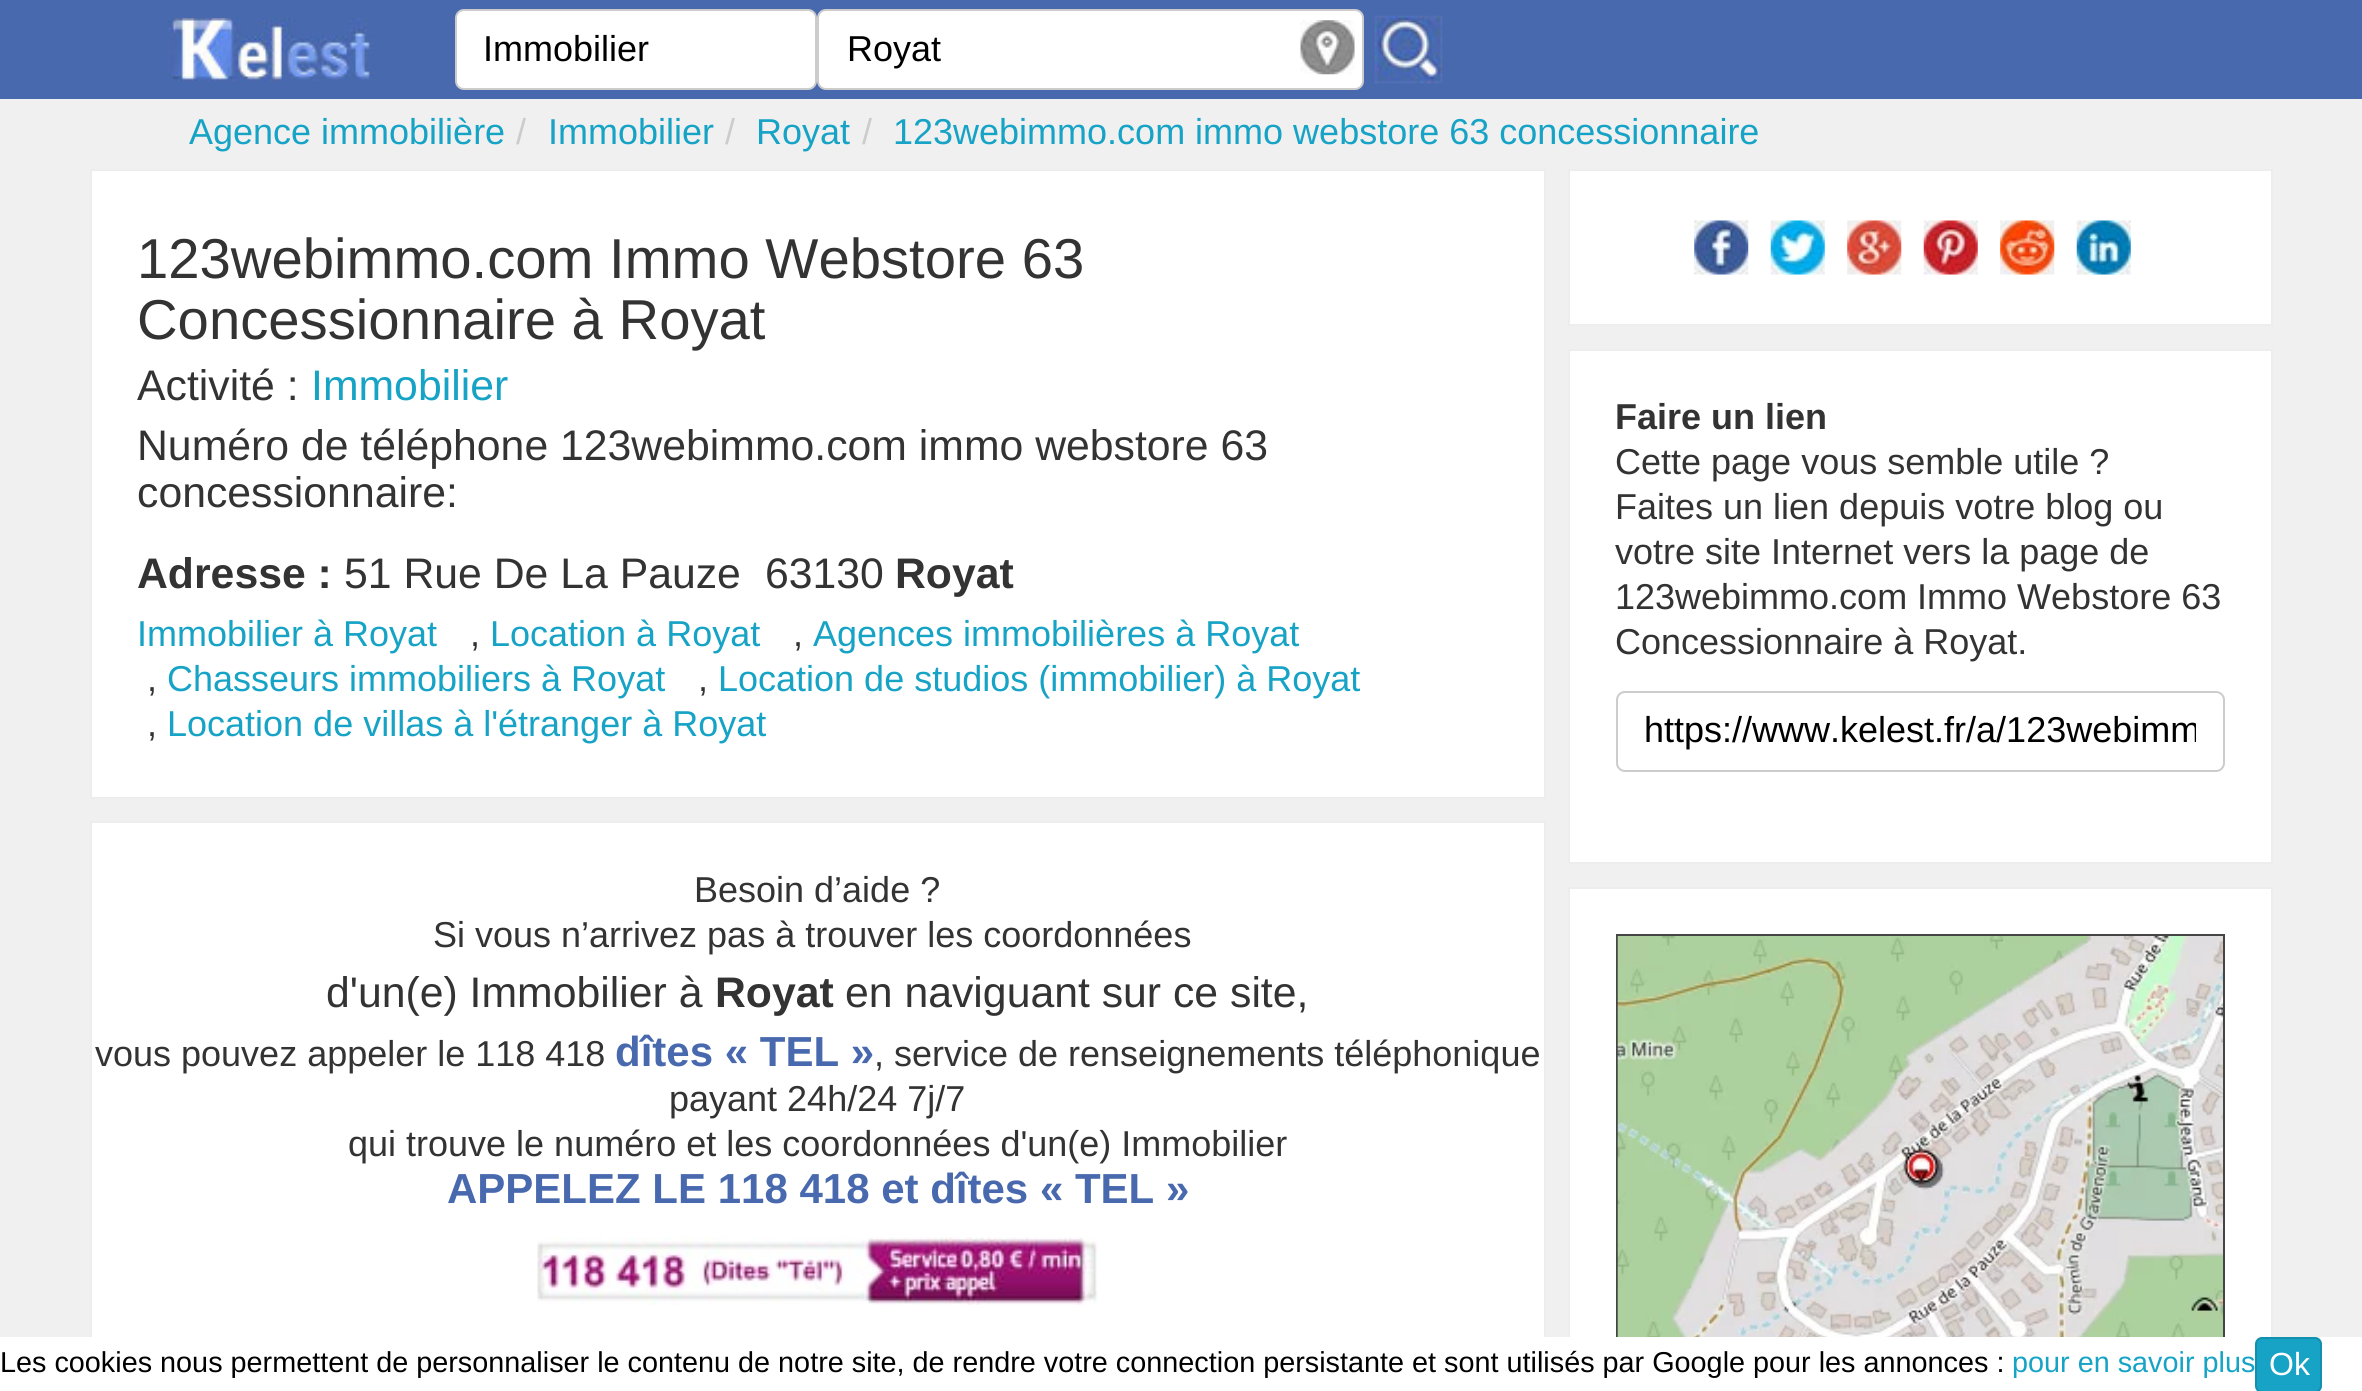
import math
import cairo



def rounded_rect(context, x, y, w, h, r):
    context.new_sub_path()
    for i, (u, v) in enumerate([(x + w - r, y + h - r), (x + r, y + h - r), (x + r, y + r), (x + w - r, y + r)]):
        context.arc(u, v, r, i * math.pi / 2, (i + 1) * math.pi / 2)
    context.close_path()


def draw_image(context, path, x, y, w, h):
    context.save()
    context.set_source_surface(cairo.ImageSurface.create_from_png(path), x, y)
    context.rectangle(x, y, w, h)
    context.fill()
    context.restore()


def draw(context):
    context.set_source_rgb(240 / 255, 240 / 255, 240 / 255)
    context.paint()
    context.set_source_rgb(73 / 255, 105 / 255, 175 / 255)
    context.rectangle(0, 0, 2362, 99)
    context.fill()
    draw_image(context, "images/1.png", 168, 18, 206, 63)
    context.set_source_rgb(1, 1, 1)
    rounded_rect(context, 456, 10, 360, 79, 8)
    context.fill_preserve()
    context.set_source_rgb(204 / 255, 204 / 255, 204 / 255)
    context.stroke()
    context.set_source_rgb(1, 1, 1)
    rounded_rect(context, 818, 10, 545, 79, 8)
    context.fill_preserve()
    context.set_source_rgb(204 / 255, 204 / 255, 204 / 255)
    context.stroke()
    draw_image(context, "images/2.png", 1300, 20, 55, 55)
    draw_image(context, "images/3.png", 1374, 15, 69, 69)
    context.set_source_rgb(1, 1, 1)
    context.rectangle(91, 170, 1454, 628)
    context.fill_preserve()
    context.set_source_rgb(237 / 255, 237 / 255, 237 / 255)
    context.stroke()
    context.set_source_rgb(1, 1, 1)
    context.rectangle(92, 823, 1452, 514)
    context.fill()
    context.rectangle(91, 822, 1454, 529)
    context.set_source_rgb(237 / 255, 237 / 255, 237 / 255)
    context.stroke()
    draw_image(context, "images/4.png", 537, 1237, 561, 68)
    context.set_source_rgb(1, 1, 1)
    context.rectangle(1569, 170, 703, 155)
    context.fill_preserve()
    context.set_source_rgb(237 / 255, 237 / 255, 237 / 255)
    context.stroke()
    draw_image(context, "images/5.png", 1694, 220, 55, 55)
    draw_image(context, "images/6.png", 1770, 220, 55, 55)
    draw_image(context, "images/7.png", 1847, 220, 55, 55)
    draw_image(context, "images/8.png", 1923, 220, 55, 55)
    draw_image(context, "images/9.png", 2000, 220, 55, 55)
    draw_image(context, "images/10.png", 2076, 220, 55, 55)
    context.set_source_rgb(1, 1, 1)
    context.rectangle(1569, 350, 703, 513)
    context.fill_preserve()
    context.set_source_rgb(237 / 255, 237 / 255, 237 / 255)
    context.stroke()
    rounded_rect(context, 1617, 692, 607, 79, 8)
    context.set_source_rgb(204 / 255, 204 / 255, 204 / 255)
    context.stroke()
    context.set_source_rgb(1, 1, 1)
    context.rectangle(1570, 889, 701, 448)
    context.fill()
    context.rectangle(1569, 888, 703, 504)
    context.set_source_rgb(237 / 255, 237 / 255, 237 / 255)
    context.stroke()
    context.rectangle(1617, 935, 607, 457)
    context.set_source_rgb(69 / 255, 69 / 255, 69 / 255)
    context.stroke()
    draw_image(context, "images/11.png", 1617, 936, 606, 401)
    context.set_source_rgb(1, 1, 1)
    context.rectangle(0, 1337, 2362, 54)
    context.fill()
    context.set_source_rgb(22 / 255, 163 / 255, 197 / 255)
    rounded_rect(context, 2256, 1338, 65, 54, 6)
    context.fill_preserve()
    context.set_source_rgb(19 / 255, 144 / 255, 174 / 255)
    context.stroke()
    context.select_font_face("Liberation Sans")
    context.set_font_size(36)
    context.set_source_rgb(0, 0, 0)
    context.move_to(483, 61)
    context.show_text("Immobilier")
    context.move_to(847, 61)
    context.show_text("Royat")
    context.set_source_rgb(22 / 255, 163 / 255, 197 / 255)
    context.move_to(189, 144)
    context.show_text("Agence immobilière")
    context.set_source_rgb(204 / 255, 204 / 255, 204 / 255)
    context.move_to(516, 144)
    context.show_text("/")
    context.set_source_rgb(22 / 255, 163 / 255, 197 / 255)
    context.move_to(548, 144)
    context.show_text("Immobilier")
    context.set_source_rgb(204 / 255, 204 / 255, 204 / 255)
    context.move_to(725, 144)
    context.show_text("/")
    context.set_source_rgb(22 / 255, 163 / 255, 197 / 255)
    context.move_to(756, 144)
    context.show_text("Royat")
    context.set_source_rgb(204 / 255, 204 / 255, 204 / 255)
    context.move_to(862, 144)
    context.show_text("/")
    context.set_source_rgb(22 / 255, 163 / 255, 197 / 255)
    context.move_to(893, 144)
    context.show_text("123webimmo.com immo webstore 63 concessionnaire")
    context.set_font_size(56.25)
    context.set_source_rgb(51 / 255, 51 / 255, 51 / 255)
    context.move_to(137, 278)
    context.show_text("123webimmo.com Immo Webstore 63")
    context.move_to(137, 339)
    context.show_text("Concessionnaire à Royat")
    context.set_font_size(42.75)
    context.move_to(137, 400)
    context.show_text("Activité :")
    context.set_source_rgb(22 / 255, 163 / 255, 197 / 255)
    context.move_to(311, 400)
    context.show_text("Immobilier")
    context.set_source_rgb(51 / 255, 51 / 255, 51 / 255)
    context.move_to(137, 460)
    context.show_text("Numéro de téléphone 123webimmo.com immo webstore 63")
    context.move_to(137, 507)
    context.show_text("concessionnaire:")
    context.select_font_face("Liberation Sans", cairo.FontSlant.NORMAL, cairo.FontWeight.BOLD)
    context.move_to(137, 588)
    context.show_text("Adresse :")
    context.select_font_face("Liberation Sans")
    context.move_to(344, 588)
    context.show_text("51 Rue De La Pauze")
    context.move_to(765, 588)
    context.show_text("63130")
    context.select_font_face("Liberation Sans", cairo.FontSlant.NORMAL, cairo.FontWeight.BOLD)
    context.move_to(895, 588)
    context.show_text("Royat")
    context.select_font_face("Liberation Sans")
    context.set_font_size(36)
    context.set_source_rgb(22 / 255, 163 / 255, 197 / 255)
    context.move_to(137, 646)
    context.show_text("Immobilier à Royat")
    context.set_source_rgb(51 / 255, 51 / 255, 51 / 255)
    context.move_to(470, 646)
    context.show_text(",")
    context.set_source_rgb(22 / 255, 163 / 255, 197 / 255)
    context.move_to(490, 646)
    context.show_text("Location à Royat")
    context.set_source_rgb(51 / 255, 51 / 255, 51 / 255)
    context.move_to(793, 646)
    context.show_text(",")
    context.set_source_rgb(22 / 255, 163 / 255, 197 / 255)
    context.move_to(813, 646)
    context.show_text("Agences immobilières à Royat")
    context.set_source_rgb(51 / 255, 51 / 255, 51 / 255)
    context.move_to(147, 691)
    context.show_text(",")
    context.set_source_rgb(22 / 255, 163 / 255, 197 / 255)
    context.move_to(167, 691)
    context.show_text("Chasseurs immobiliers à Royat")
    context.set_source_rgb(51 / 255, 51 / 255, 51 / 255)
    context.move_to(698, 691)
    context.show_text(",")
    context.set_source_rgb(22 / 255, 163 / 255, 197 / 255)
    context.move_to(718, 691)
    context.show_text("Location de studios (immobilier) à Royat")
    context.set_source_rgb(51 / 255, 51 / 255, 51 / 255)
    context.move_to(147, 736)
    context.show_text(",")
    context.set_source_rgb(22 / 255, 163 / 255, 197 / 255)
    context.move_to(167, 736)
    context.show_text("Location de villas à l'étranger à Royat")
    context.set_source_rgb(51 / 255, 51 / 255, 51 / 255)
    context.move_to(694, 902)
    context.show_text("Besoin d’aide ?")
    context.move_to(433, 947)
    context.show_text("Si vous n’arrivez pas à trouver les coordonnées")
    context.set_font_size(42.75)
    context.move_to(326, 1007)
    context.show_text("d'un(e) Immobilier à")
    context.select_font_face("Liberation Sans", cairo.FontSlant.NORMAL, cairo.FontWeight.BOLD)
    context.move_to(715, 1007)
    context.show_text("Royat")
    context.select_font_face("Liberation Sans")
    context.move_to(845, 1007)
    context.show_text("en naviguant sur ce site,")
    context.set_font_size(36)
    context.move_to(95, 1066)
    context.show_text("vous pouvez appeler le 118 418")
    context.select_font_face("Liberation Sans", cairo.FontSlant.NORMAL, cairo.FontWeight.BOLD)
    context.set_font_size(42)
    context.set_source_rgb(73 / 255, 105 / 255, 175 / 255)
    context.move_to(615, 1066)
    context.show_text("dîtes « TEL »")
    context.select_font_face("Liberation Sans")
    context.set_font_size(36)
    context.set_source_rgb(51 / 255, 51 / 255, 51 / 255)
    context.move_to(874, 1066)
    context.show_text(", service de renseignements téléphonique")
    context.move_to(669, 1111)
    context.show_text("payant 24h/24 7j/7")
    context.move_to(348, 1156)
    context.show_text("qui trouve le numéro et les coordonnées d'un(e) Immobilier")
    context.select_font_face("Liberation Sans", cairo.FontSlant.NORMAL, cairo.FontWeight.BOLD)
    context.set_font_size(42)
    context.set_source_rgb(73 / 255, 105 / 255, 175 / 255)
    context.move_to(447, 1203)
    context.show_text("APPELEZ LE 118 418 et dîtes « TEL »")
    context.set_font_size(36)
    context.set_source_rgb(51 / 255, 51 / 255, 51 / 255)
    context.move_to(1615, 429)
    context.show_text("Faire un lien")
    context.select_font_face("Liberation Sans")
    context.move_to(1615, 474)
    context.show_text("Cette page vous semble utile ?")
    context.move_to(1615, 519)
    context.show_text("Faites un lien depuis votre blog ou")
    context.move_to(1615, 564)
    context.show_text("votre site Internet vers la page de")
    context.move_to(1615, 609)
    context.show_text("123webimmo.com Immo Webstore 63")
    context.move_to(1615, 654)
    context.show_text("Concessionnaire à Royat.")
    context.save()
    context.rectangle(1645, 711, 551, 41)
    context.clip()
    context.set_source_rgb(0, 0, 0)
    context.move_to(1644, 742)
    context.show_text("https://www.kelest.fr/a/123webimm")
    context.restore()
    context.set_font_size(28.8)
    context.set_source_rgb(0, 0, 0)
    context.move_to(0, 1372)
    context.show_text("Les cookies nous permettent de personnaliser le contenu de notre site, de rendre votre connection persistante et sont utilisés par Google pour les annonces :")
    context.set_source_rgb(22 / 255, 163 / 255, 197 / 255)
    context.move_to(2012, 1372)
    context.show_text("pour en savoir plus")
    context.set_font_size(32)
    context.set_source_rgb(1, 1, 1)
    context.move_to(2269, 1375)
    context.show_text("Ok")


surface = cairo.ImageSurface(cairo.Format.RGB24, 2362, 1391)
context = cairo.Context(surface)
options = cairo.FontOptions()
options.set_hint_metrics(cairo.HintMetrics.OFF)
options.set_hint_style(cairo.HintStyle.NONE)
context.set_font_options(options)
context.set_miter_limit(4)
draw(context)
surface.write_to_png("out.png")
